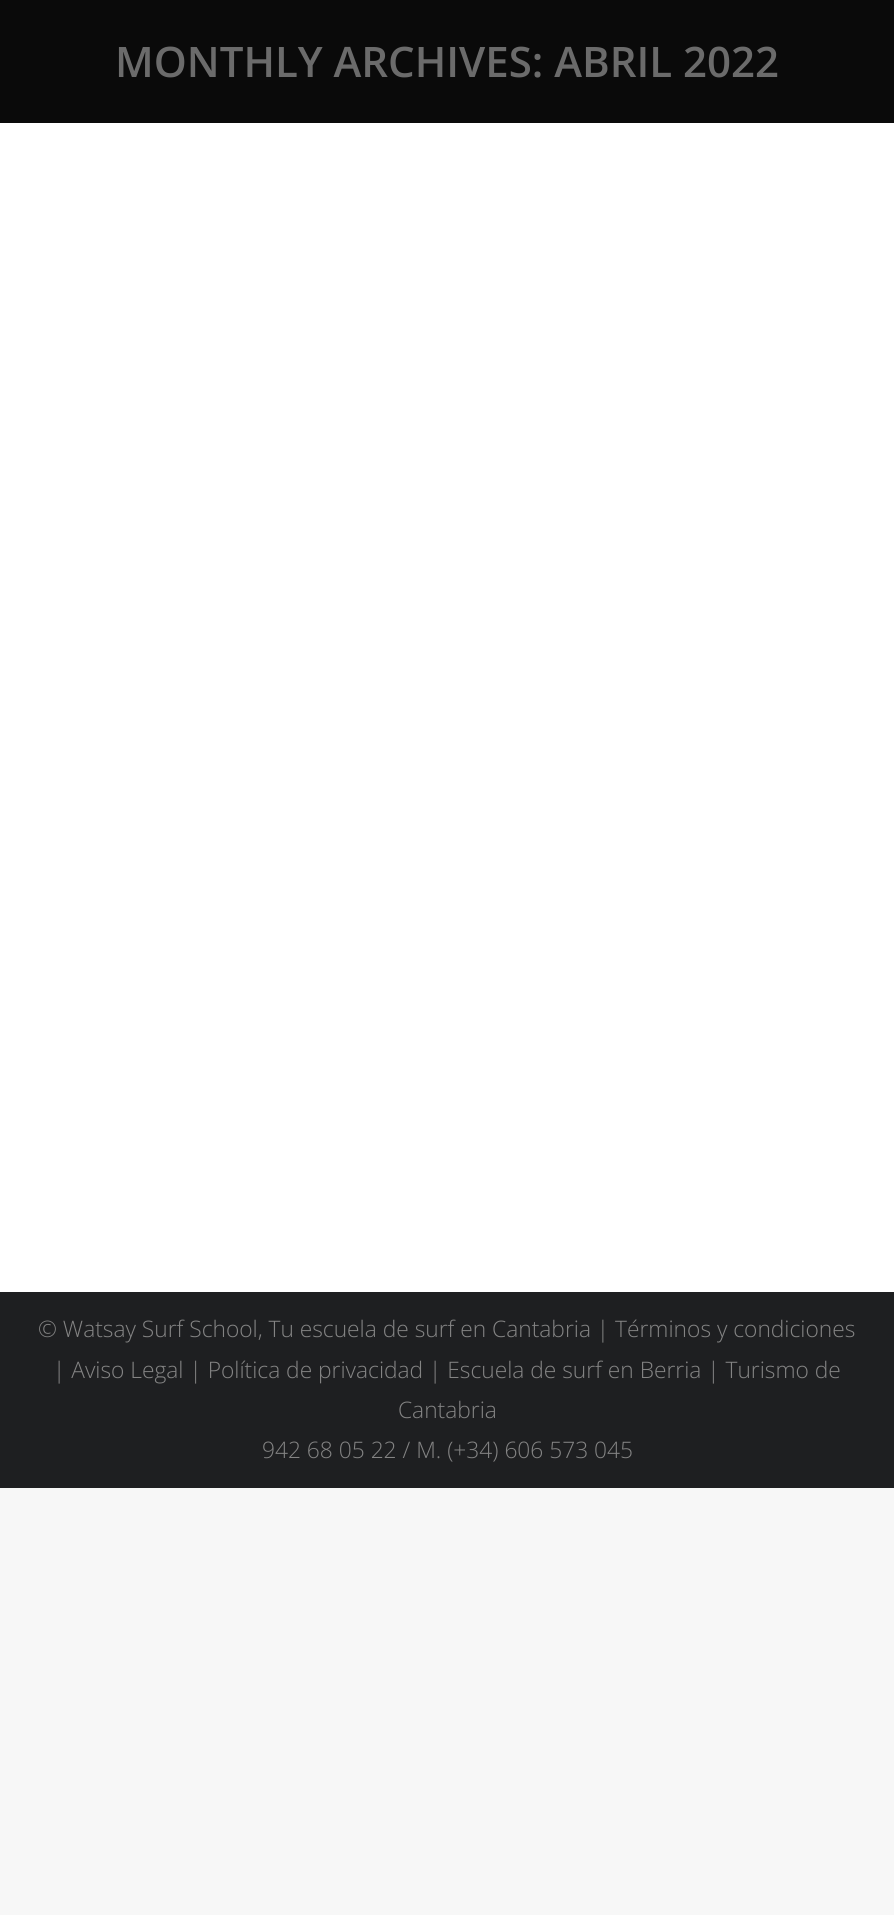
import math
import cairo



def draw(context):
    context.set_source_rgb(247 / 255, 247 / 255, 247 / 255)
    context.paint()
    context.set_source_rgb(1, 1, 1)
    context.rectangle(0, 123, 894, 1169)
    context.fill()
    context.set_source_rgb(10 / 255, 10 / 255, 10 / 255)
    context.rectangle(0, 0, 894, 123)
    context.fill()
    context.set_source_rgb(30 / 255, 31 / 255, 33 / 255)
    context.rectangle(0, 1292, 894, 196)
    context.fill()
    context.select_font_face("Open Sans SemiBold")
    context.set_font_size(42)
    context.set_source_rgb(107 / 255, 107 / 255, 107 / 255)
    context.move_to(115, 77)
    context.show_text("MONTHLY ARCHIVES: ABRIL 2022")
    context.select_font_face("Open Sans Light")
    context.set_font_size(22.75)
    context.set_source_rgb(132 / 255, 132 / 255, 132 / 255)
    context.move_to(38, 1337)
    context.show_text("© Watsay Surf School, Tu escuela de surf en Cantabria | Términos y condiciones")
    context.move_to(53, 1378)
    context.show_text("| Aviso Legal | Política de privacidad | Escuela de surf en Berria | Turismo de")
    context.move_to(398, 1418)
    context.show_text("Cantabria")
    context.move_to(262, 1458)
    context.show_text("942 68 05 22 / M. (+34) 606 573 045")


surface = cairo.ImageSurface(cairo.Format.RGB24, 894, 1915)
context = cairo.Context(surface)
options = cairo.FontOptions()
options.set_hint_metrics(cairo.HintMetrics.OFF)
options.set_hint_style(cairo.HintStyle.NONE)
context.set_font_options(options)
context.set_miter_limit(4)
draw(context)
surface.write_to_png("out.png")
